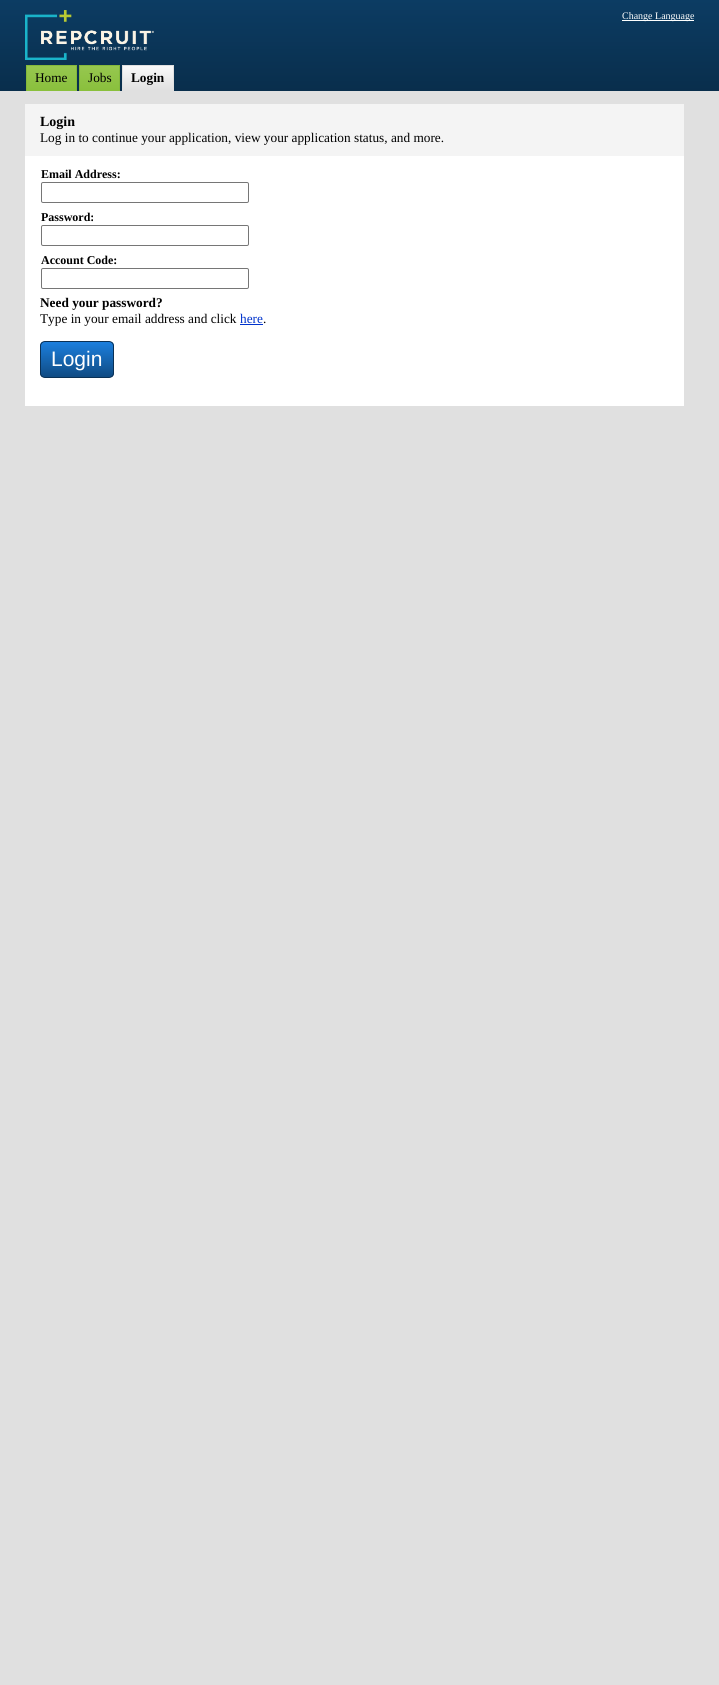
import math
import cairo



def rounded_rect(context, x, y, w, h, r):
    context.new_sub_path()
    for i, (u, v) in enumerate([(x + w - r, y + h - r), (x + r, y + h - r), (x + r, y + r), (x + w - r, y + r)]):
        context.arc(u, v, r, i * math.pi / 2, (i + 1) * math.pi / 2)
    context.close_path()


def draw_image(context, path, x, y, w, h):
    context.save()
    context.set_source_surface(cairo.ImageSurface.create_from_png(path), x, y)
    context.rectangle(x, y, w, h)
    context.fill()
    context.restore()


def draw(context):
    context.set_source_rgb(224 / 255, 224 / 255, 224 / 255)
    context.paint()
    gradient = cairo.LinearGradient(360, 0, 360, 91)
    gradient.add_color_stop_rgba(0, 12 / 255, 60 / 255, 99 / 255, 1)
    gradient.add_color_stop_rgba(1, 9 / 255, 46 / 255, 76 / 255, 1)
    context.set_source(gradient)
    context.rectangle(0, 0, 719, 91)
    context.fill()
    draw_image(context, "images/1.png", 25, 10, 129, 50)
    context.set_source_rgb(1, 1, 1)
    context.rectangle(622, 20, 72, 1)
    context.fill()
    gradient = cairo.LinearGradient(52, 66, 52, 90)
    gradient.add_color_stop_rgba(0, 150 / 255, 199 / 255, 79 / 255, 1)
    gradient.add_color_stop_rgba(1, 138 / 255, 192 / 255, 61 / 255, 1)
    context.set_source(gradient)
    context.rectangle(27, 66, 49, 24)
    context.fill()
    context.set_source_rgb(132 / 255, 184 / 255, 59 / 255)
    context.rectangle(26, 65, 51, 1)
    context.fill()
    context.rectangle(76, 65, 1, 26)
    context.fill()
    context.set_source_rgb(138 / 255, 192 / 255, 61 / 255)
    context.rectangle(26, 90, 51, 1)
    context.fill()
    context.set_source_rgb(132 / 255, 184 / 255, 59 / 255)
    context.rectangle(26, 65, 1, 26)
    context.fill()
    gradient = cairo.LinearGradient(100, 66, 100, 90)
    gradient.add_color_stop_rgba(0, 150 / 255, 199 / 255, 79 / 255, 1)
    gradient.add_color_stop_rgba(1, 138 / 255, 192 / 255, 61 / 255, 1)
    context.set_source(gradient)
    context.rectangle(80, 66, 39, 24)
    context.fill()
    context.set_source_rgb(132 / 255, 184 / 255, 59 / 255)
    context.rectangle(79, 65, 41, 1)
    context.fill()
    context.rectangle(119, 65, 1, 26)
    context.fill()
    context.set_source_rgb(138 / 255, 192 / 255, 61 / 255)
    context.rectangle(79, 90, 41, 1)
    context.fill()
    context.set_source_rgb(132 / 255, 184 / 255, 59 / 255)
    context.rectangle(79, 65, 1, 26)
    context.fill()
    gradient = cairo.LinearGradient(148, 66, 148, 90)
    gradient.add_color_stop_rgba(0, 250 / 255, 250 / 255, 250 / 255, 1)
    gradient.add_color_stop_rgba(1, 224 / 255, 224 / 255, 224 / 255, 1)
    context.set_source(gradient)
    context.rectangle(123, 66, 50, 24)
    context.fill()
    context.rectangle(122.5, 65.5, 51, 25)
    context.set_source_rgb(224 / 255, 224 / 255, 224 / 255)
    context.set_line_width(1)
    context.stroke()
    context.set_source_rgb(1, 1, 1)
    context.rectangle(25, 156, 659, 250)
    context.fill()
    context.set_source_rgb(244 / 255, 244 / 255, 244 / 255)
    context.rectangle(25, 104, 659, 52)
    context.fill()
    rounded_rect(context, 41.5, 182.5, 207, 20, 1.5)
    context.set_source_rgb(118 / 255, 118 / 255, 118 / 255)
    context.stroke()
    rounded_rect(context, 41.5, 225.5, 207, 20, 1.5)
    context.stroke()
    rounded_rect(context, 41.5, 268.5, 207, 20, 1.5)
    context.stroke()
    context.set_source_rgb(0, 51 / 255, 204 / 255)
    context.rectangle(240, 324, 23, 1)
    context.fill()
    context.save()
    rounded_rect(context, 40, 341, 74, 37, 5)
    context.clip()
    gradient = cairo.LinearGradient(77, 342, 77, 377)
    gradient.add_color_stop_rgba(0, 27 / 255, 127 / 255, 222 / 255, 1)
    gradient.add_color_stop_rgba(1, 16 / 255, 75 / 255, 131 / 255, 1)
    context.set_source(gradient)
    context.rectangle(40, 342, 74, 35)
    context.fill()
    context.restore()
    rounded_rect(context, 40.5, 341.5, 73, 36, 4.5)
    context.set_source_rgb(10 / 255, 49 / 255, 86 / 255)
    context.stroke()
    context.select_font_face("Liberation Serif")
    context.set_font_size(10)
    context.set_source_rgb(1, 1, 1)
    context.move_to(622, 19)
    context.show_text("Change Language")
    context.set_font_size(13.3)
    context.set_source_rgb(0, 0, 0)
    context.move_to(35, 82)
    context.show_text("Home")
    context.move_to(88, 82)
    context.show_text("Jobs")
    context.select_font_face("Liberation Serif", cairo.FontSlant.NORMAL, cairo.FontWeight.BOLD)
    context.move_to(131, 82)
    context.show_text("Login")
    context.set_font_size(14)
    context.move_to(40, 126)
    context.show_text("Login")
    context.select_font_face("Liberation Serif")
    context.set_font_size(13.3)
    context.move_to(40, 142)
    context.show_text("Log in to continue your application, view your application status, and more.")
    context.select_font_face("Liberation Serif", cairo.FontSlant.NORMAL, cairo.FontWeight.BOLD)
    context.set_font_size(12)
    context.move_to(41, 178)
    context.show_text("Email Address:")
    context.move_to(41, 221)
    context.show_text("Password:")
    context.move_to(41, 264)
    context.show_text("Account Code:")
    context.set_font_size(13.3)
    context.move_to(40, 307)
    context.show_text("Need your password?")
    context.select_font_face("Liberation Serif")
    context.move_to(40, 323)
    context.show_text("Type in your email address and click")
    context.set_source_rgb(0, 51 / 255, 204 / 255)
    context.move_to(240, 323)
    context.show_text("here")
    context.set_source_rgb(0, 0, 0)
    context.move_to(263, 323)
    context.show_text(".")
    context.select_font_face("Liberation Sans")
    context.set_font_size(21)
    context.set_source_rgb(1, 1, 1)
    context.move_to(51, 366)
    context.show_text("Login")


surface = cairo.ImageSurface(cairo.Format.RGB24, 719, 1685)
context = cairo.Context(surface)
options = cairo.FontOptions()
options.set_hint_metrics(cairo.HintMetrics.OFF)
options.set_hint_style(cairo.HintStyle.NONE)
context.set_font_options(options)
context.set_miter_limit(4)
draw(context)
surface.write_to_png("out.png")
